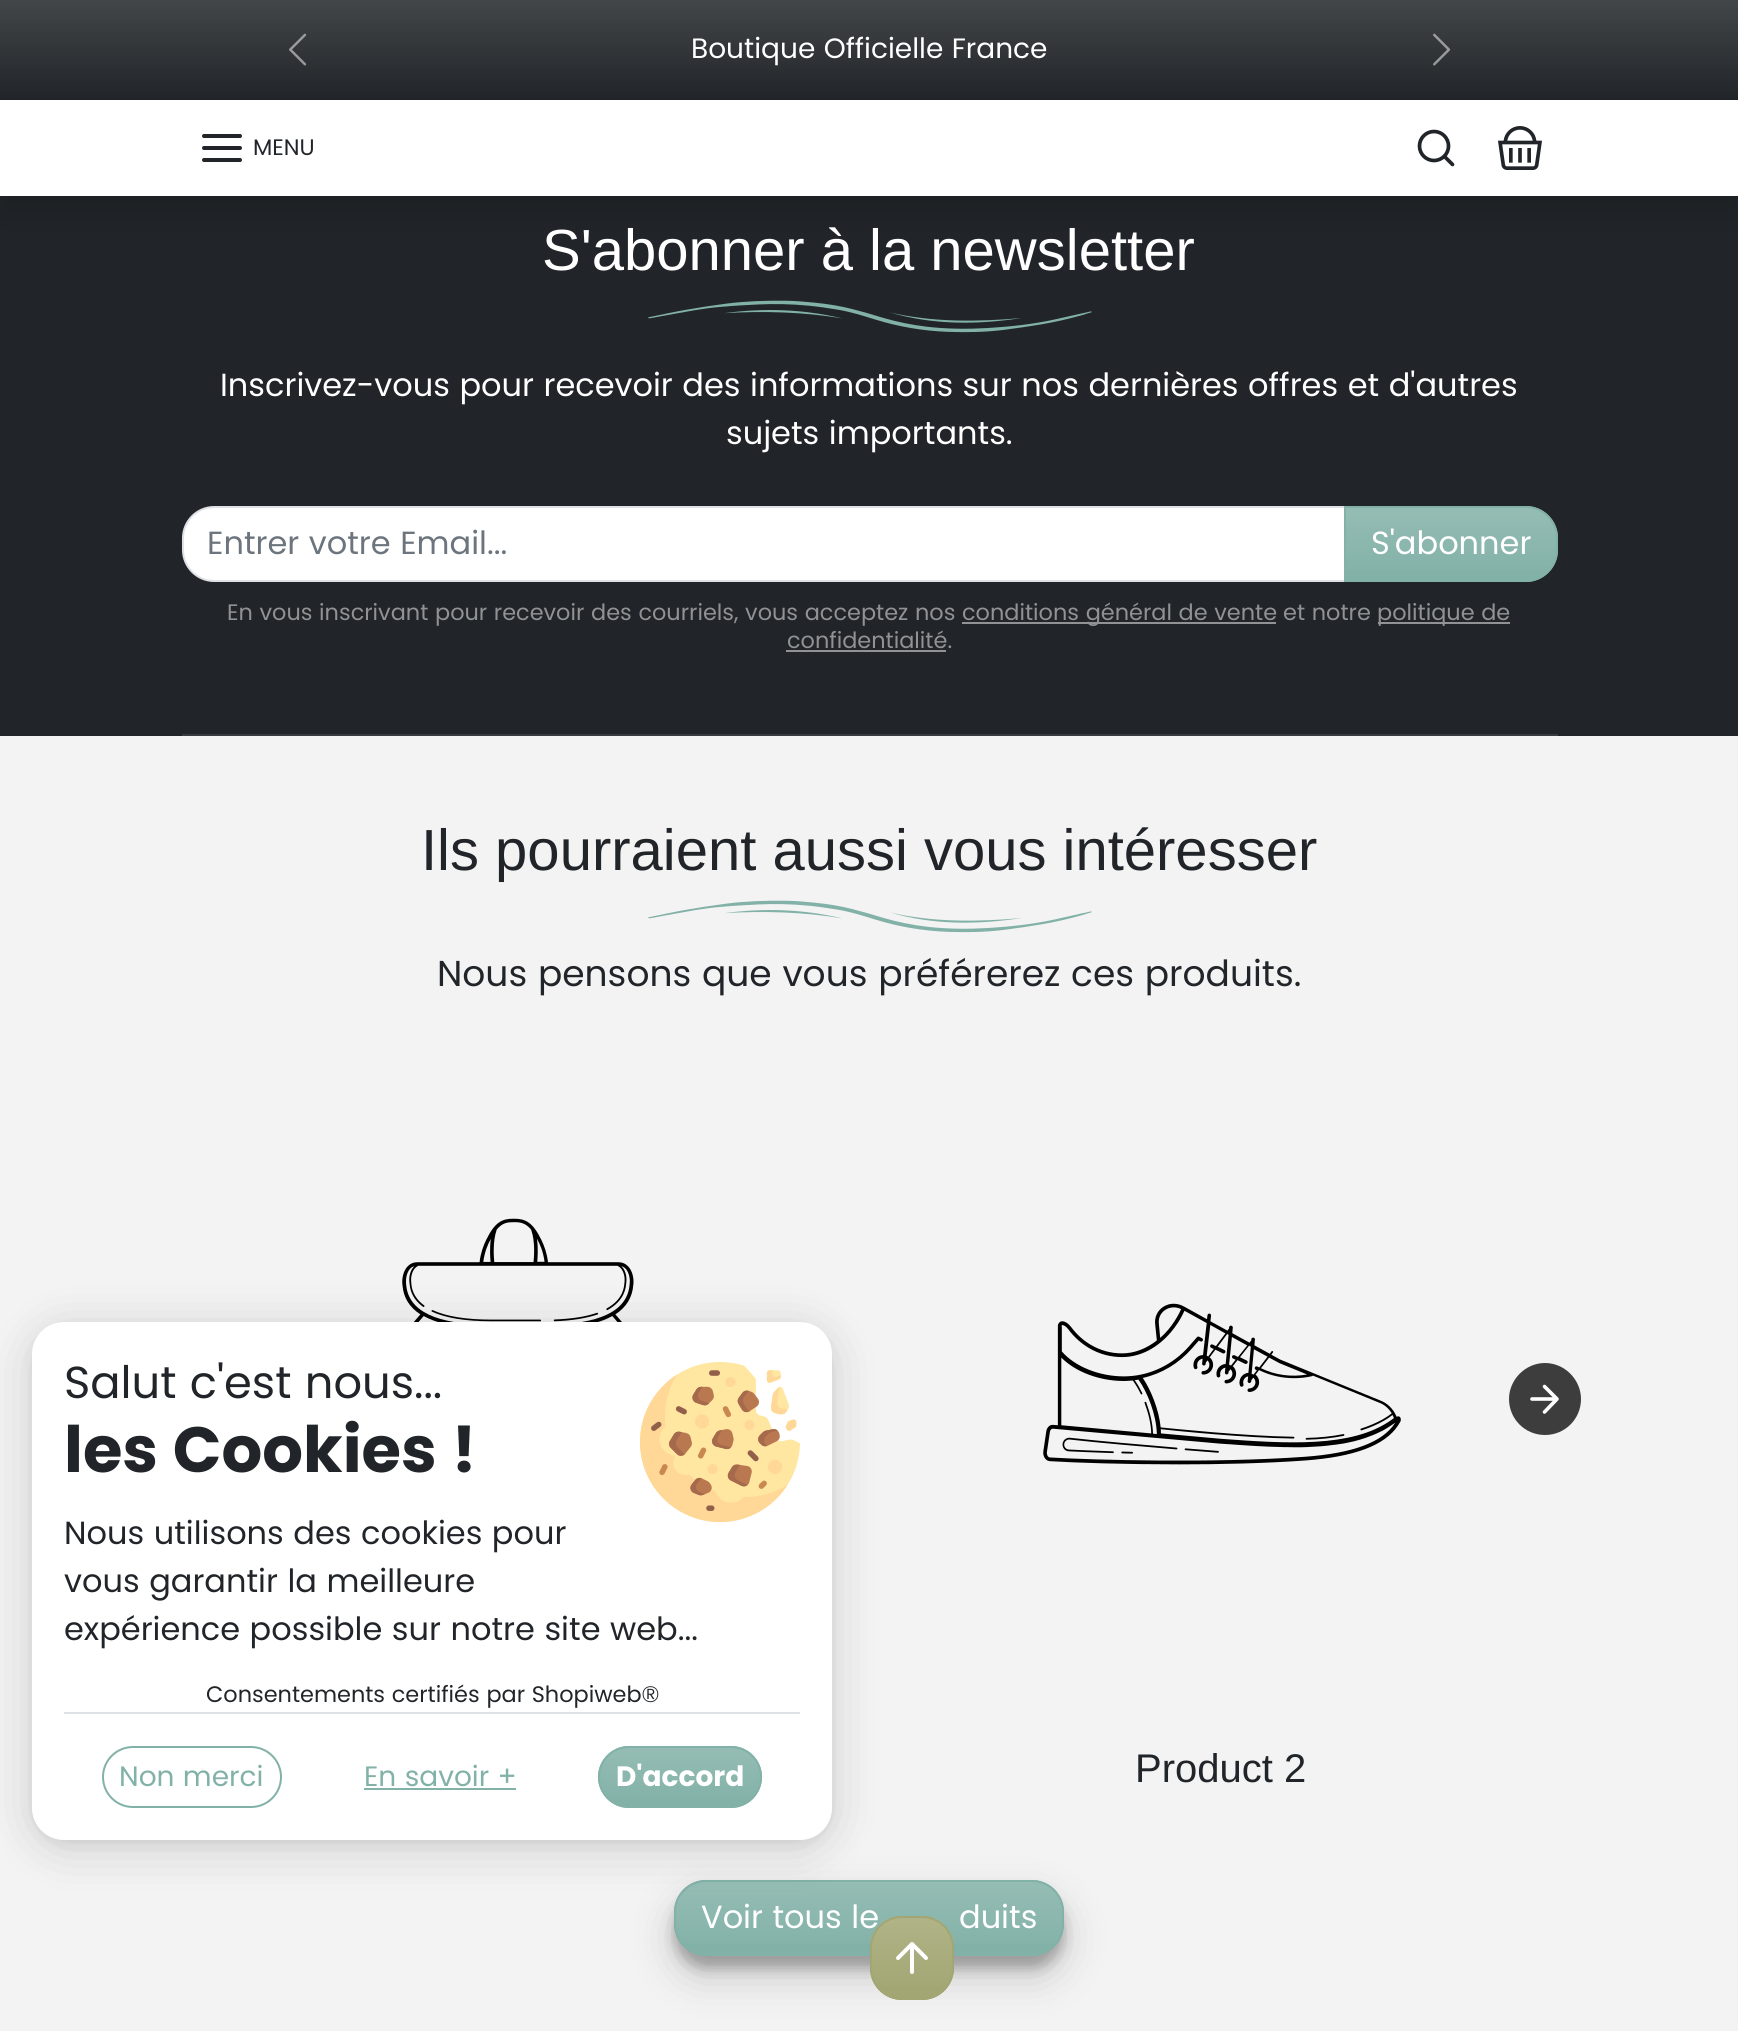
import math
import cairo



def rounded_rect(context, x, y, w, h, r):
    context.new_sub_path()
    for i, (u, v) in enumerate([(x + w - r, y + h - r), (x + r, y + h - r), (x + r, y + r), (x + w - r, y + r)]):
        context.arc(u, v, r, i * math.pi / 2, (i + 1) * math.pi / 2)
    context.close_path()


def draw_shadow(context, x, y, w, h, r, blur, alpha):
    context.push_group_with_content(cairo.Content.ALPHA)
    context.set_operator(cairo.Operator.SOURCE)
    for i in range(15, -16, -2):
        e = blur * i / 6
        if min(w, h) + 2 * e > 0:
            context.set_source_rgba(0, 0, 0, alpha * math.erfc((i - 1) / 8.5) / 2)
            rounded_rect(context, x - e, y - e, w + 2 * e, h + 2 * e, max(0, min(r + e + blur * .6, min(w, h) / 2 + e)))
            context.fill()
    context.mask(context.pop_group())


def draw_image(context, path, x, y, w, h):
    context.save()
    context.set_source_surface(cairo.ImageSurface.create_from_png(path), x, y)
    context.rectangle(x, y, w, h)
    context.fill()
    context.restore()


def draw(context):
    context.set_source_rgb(243 / 255, 243 / 255, 243 / 255)
    context.paint()
    gradient = cairo.LinearGradient(869, 0, 869, 100)
    gradient.add_color_stop_rgba(0, 66 / 255, 70 / 255, 73 / 255, 1)
    gradient.add_color_stop_rgba(1, 33 / 255, 37 / 255, 41 / 255, 1)
    context.set_source(gradient)
    context.rectangle(0, 0, 1738, 100)
    context.fill()
    draw_image(context, "images/1.png", 289, 33, 18, 33)
    draw_image(context, "images/2.png", 1433, 33, 18, 33)
    context.set_source_rgb(33 / 255, 37 / 255, 41 / 255)
    context.rectangle(0, 196, 1738, 540)
    context.fill()
    context.set_source_rgb(0, 0, 0)
    draw_shadow(context, 0, 116, 1738, 96, 0, 16, 0.15)
    context.set_source_rgb(1, 1, 1)
    context.rectangle(0, 100, 1738, 96)
    context.fill()
    context.new_path()
    context.move_to(204, 148)
    context.line_to(240, 148)
    context.move_to(204, 136)
    context.line_to(240, 136)
    context.move_to(204, 160)
    context.line_to(240, 160)
    context.set_source_rgb(33 / 255, 37 / 255, 41 / 255)
    context.set_line_width(4)
    context.set_line_cap(cairo.LineCap.ROUND)
    context.set_line_join(cairo.LineJoin.ROUND)
    context.stroke()
    context.arc(1434, 146, 14.5, 0, 2 * math.pi)
    context.set_line_width(3.7)
    context.set_line_cap(cairo.LineCap.BUTT)
    context.set_line_join(cairo.LineJoin.MITER)
    context.stroke()
    context.new_path()
    context.move_to(1452.5, 164.5)
    context.line_to(1444.5, 156.5)
    context.set_line_cap(cairo.LineCap.ROUND)
    context.set_line_join(cairo.LineJoin.ROUND)
    context.stroke()
    draw_image(context, "images/3.png", 1498, 126, 44, 44)
    context.set_source_rgb(55 / 255, 59 / 255, 62 / 255)
    context.rectangle(182, 734, 1376, 2)
    context.fill()
    draw_image(context, "images/4.png", 647, 300, 445, 33)
    context.set_source_rgb(1, 1, 1)
    context.new_path()
    context.move_to(214, 507)
    context.line_to(1345, 507)
    context.line_to(1345, 581)
    context.line_to(214, 581)
    context.curve_to(197, 581, 183, 567, 183, 550)
    context.line_to(183, 538)
    context.curve_to(183, 521, 197, 507, 214, 507)
    context.close_path()
    context.fill_preserve()
    context.set_source_rgb(222 / 255, 226 / 255, 230 / 255)
    context.set_line_width(2)
    context.set_line_cap(cairo.LineCap.BUTT)
    context.set_line_join(cairo.LineJoin.MITER)
    context.stroke()
    context.set_source_rgb(130 / 255, 177 / 255, 167 / 255)
    context.new_path()
    context.move_to(1344, 506)
    context.line_to(1526, 506)
    context.curve_to(1543.5, 506, 1558, 520.5, 1558, 538)
    context.line_to(1558, 550)
    context.curve_to(1558, 567.5, 1543.5, 582, 1526, 582)
    context.line_to(1344, 582)
    context.close_path()
    context.fill()
    context.save()
    context.new_path()
    context.move_to(1344, 506)
    context.line_to(1526, 506)
    context.curve_to(1543.5, 506, 1558, 520.5, 1558, 538)
    context.line_to(1558, 550)
    context.curve_to(1558, 567.5, 1543.5, 582, 1526, 582)
    context.line_to(1344, 582)
    context.close_path()
    context.clip()
    gradient = cairo.LinearGradient(1451, 508, 1451, 580)
    gradient.add_color_stop_rgba(0, 1, 1, 1, 0.15)
    gradient.add_color_stop_rgba(1, 1, 1, 1, 0)
    context.set_source(gradient)
    context.rectangle(1346, 508, 212, 62)
    context.fill()
    context.restore()
    context.new_path()
    context.move_to(1345, 507)
    context.line_to(1526, 507)
    context.curve_to(1543, 507, 1557, 521, 1557, 538)
    context.line_to(1557, 550)
    context.curve_to(1557, 567, 1543, 581, 1526, 581)
    context.line_to(1345, 581)
    context.close_path()
    context.stroke()
    context.set_source_rgb(144 / 255, 146 / 255, 148 / 255)
    context.rectangle(962, 622, 314, 2)
    context.fill()
    context.rectangle(1378, 622, 132, 2)
    context.fill()
    context.rectangle(786, 650, 160, 2)
    context.fill()
    draw_image(context, "images/5.png", 647, 900, 445, 33)
    context.set_source_rgb(61 / 255, 61 / 255, 61 / 255)
    context.new_path()
    context.move_to(1545, 1435)
    context.curve_to(1525, 1435, 1509, 1419, 1509, 1399)
    context.curve_to(1509, 1380, 1525, 1363, 1545, 1363)
    context.curve_to(1565, 1363, 1581, 1380, 1581, 1399)
    context.curve_to(1581, 1419, 1565, 1435, 1545, 1435)
    context.close_path()
    context.fill()
    context.new_path()
    context.move_to(1532, 1399)
    context.line_to(1555, 1399)
    context.move_to(1544.5, 1412)
    context.line_to(1557, 1399)
    context.line_to(1544.5, 1386.5)
    context.set_source_rgb(1, 1, 1)
    context.set_line_width(3.6)
    context.set_line_cap(cairo.LineCap.ROUND)
    context.set_line_join(cairo.LineJoin.ROUND)
    context.stroke()
    draw_image(context, "images/6.png", 402, 1218, 232, 104)
    draw_image(context, "images/7.png", 1043, 1303, 358, 162)
    context.set_source_rgb(0, 0, 0)
    draw_shadow(context, 674, 1892, 390, 76, 32, 6, 0.23)
    draw_shadow(context, 674, 1900, 390, 76, 32, 20, 0.19)
    context.set_source_rgb(130 / 255, 177 / 255, 167 / 255)
    rounded_rect(context, 674, 1880, 390, 76, 32)
    context.fill()
    context.save()
    rounded_rect(context, 674, 1880, 390, 76, 32)
    context.clip()
    gradient = cairo.LinearGradient(869, 1882, 869, 1954)
    gradient.add_color_stop_rgba(0, 1, 1, 1, 0.15)
    gradient.add_color_stop_rgba(1, 1, 1, 1, 0)
    context.set_source(gradient)
    context.rectangle(674, 1882, 390, 62)
    context.fill()
    context.restore()
    rounded_rect(context, 675, 1881, 388, 74, 31)
    context.set_line_width(2)
    context.set_line_cap(cairo.LineCap.BUTT)
    context.set_line_join(cairo.LineJoin.MITER)
    context.stroke()
    context.set_source_rgb(0, 0, 0)
    draw_shadow(context, 32, 1326, 800, 518, 32, 6, 0.05)
    context.select_font_face("Poppins")
    context.set_font_size(28)
    context.set_source_rgb(1, 1, 1)
    context.move_to(691, 58)
    context.show_text("Boutique Officielle France")
    context.set_font_size(22.4)
    context.set_source_rgb(33 / 255, 37 / 255, 41 / 255)
    context.move_to(253, 155)
    context.show_text("MENU")
    context.select_font_face("Liberation Sans")
    context.set_font_size(58)
    context.set_source_rgb(1, 1, 1)
    context.move_to(542, 270)
    context.show_text("S'abonner à la newsletter")
    context.select_font_face("Poppins")
    context.set_font_size(32)
    context.move_to(220, 396)
    context.show_text("Inscrivez-vous pour recevoir des informations sur nos dernières offres et d'autres")
    context.move_to(726, 444)
    context.show_text("sujets importants.")
    context.set_source_rgb(108 / 255, 117 / 255, 125 / 255)
    context.move_to(207, 554)
    context.show_text("Entrer votre Email...")
    context.set_source_rgb(1, 1, 1)
    context.move_to(1371, 554)
    context.show_text("S'abonner")
    context.set_font_size(22.4)
    context.set_source_rgb(144 / 255, 146 / 255, 148 / 255)
    context.move_to(227, 620)
    context.show_text("En vous inscrivant pour recevoir des courriels, vous acceptez nos")
    context.move_to(962, 620)
    context.show_text("conditions général de vente")
    context.move_to(1283, 620)
    context.show_text("et notre")
    context.move_to(1377, 620)
    context.show_text("politique de")
    context.move_to(787, 648)
    context.show_text("confidentialité.")
    context.select_font_face("Liberation Sans")
    context.set_font_size(58)
    context.set_source_rgb(33 / 255, 37 / 255, 41 / 255)
    context.move_to(421, 870)
    context.show_text("Ils pourraient aussi vous intéresser")
    context.select_font_face("Poppins")
    context.set_font_size(36)
    context.move_to(437, 986)
    context.show_text("Nous pensons que vous préférerez ces produits.")
    context.select_font_face("Liberation Sans")
    context.set_font_size(40)
    context.move_to(1135, 1782)
    context.show_text("Product 2")
    context.select_font_face("Poppins")
    context.set_font_size(32)
    context.set_source_rgb(1, 1, 1)
    context.move_to(701, 1928)
    context.show_text("Voir tous le")
    context.move_to(959, 1928)
    context.show_text("duits")
    context.set_source_rgb(162 / 255, 166 / 255, 114 / 255)
    rounded_rect(context, 870, 1916, 84, 84, 32)
    context.fill()
    context.save()
    rounded_rect(context, 870, 1916, 84, 84, 32)
    context.clip()
    gradient = cairo.LinearGradient(912, 1918, 912, 1998)
    gradient.add_color_stop_rgba(0, 1, 1, 1, 0.15)
    gradient.add_color_stop_rgba(1, 1, 1, 1, 0)
    context.set_source(gradient)
    context.rectangle(870, 1918, 84, 68)
    context.fill()
    context.restore()
    rounded_rect(context, 871, 1917, 82, 82, 31)
    context.stroke()
    context.set_source_rgb(0, 0, 0)
    draw_shadow(context, 32, 1330, 800, 518, 32, 24, 0.15)
    context.set_source_rgb(1, 1, 1)
    rounded_rect(context, 32, 1322, 800, 518, 32)
    context.fill()
    context.set_font_size(22.4)
    context.set_source_rgb(33 / 255, 37 / 255, 41 / 255)
    context.move_to(206, 1702)
    context.show_text("Consentements certifiés par Shopiweb®")
    context.set_source_rgb(222 / 255, 226 / 255, 230 / 255)
    context.rectangle(64, 1712, 736, 2)
    context.fill()
    draw_image(context, "images/8.png", 640, 1362, 160, 160)
    context.set_source_rgb(130 / 255, 177 / 255, 167 / 255)
    rounded_rect(context, 598, 1746, 164, 62, 31)
    context.fill()
    context.save()
    rounded_rect(context, 598, 1746, 164, 62, 31)
    context.clip()
    gradient = cairo.LinearGradient(680, 1748, 680, 1806)
    gradient.add_color_stop_rgba(0, 1, 1, 1, 0.15)
    gradient.add_color_stop_rgba(1, 1, 1, 1, 0)
    context.set_source(gradient)
    context.rectangle(598, 1748, 164, 50)
    context.fill()
    context.restore()
    rounded_rect(context, 599, 1747, 162, 60, 30)
    context.stroke()
    context.select_font_face("Poppins", cairo.FontSlant.NORMAL, cairo.FontWeight.BOLD)
    context.set_font_size(28)
    context.set_source_rgb(1, 1, 1)
    context.move_to(616, 1786)
    context.show_text("D'accord")
    context.select_font_face("Poppins")
    context.set_source_rgb(130 / 255, 177 / 255, 167 / 255)
    context.move_to(364, 1786)
    context.show_text("En savoir +")
    context.rectangle(364, 1788, 152, 2)
    context.fill()
    rounded_rect(context, 103, 1747, 178, 60, 30)
    context.stroke()
    context.move_to(119, 1786)
    context.show_text("Non merci")
    context.set_font_size(32)
    context.set_source_rgb(33 / 255, 37 / 255, 41 / 255)
    context.move_to(64, 1640)
    context.show_text("expérience possible sur notre site web...")
    context.move_to(64, 1592)
    context.show_text("vous garantir la meilleure")
    context.move_to(64, 1544)
    context.show_text("Nous utilisons des cookies pour")
    context.select_font_face("Poppins", cairo.FontSlant.NORMAL, cairo.FontWeight.BOLD)
    context.set_font_size(64)
    context.move_to(64, 1472)
    context.show_text("les Cookies !")
    context.select_font_face("Poppins")
    context.set_font_size(44.75)
    context.move_to(64, 1398)
    context.show_text("Salut c'est nous...")
    context.new_path()
    context.move_to(912, 1972)
    context.line_to(912, 1946)
    context.move_to(898, 1958)
    context.line_to(912, 1944)
    context.line_to(926, 1958)
    context.set_source_rgb(1, 1, 1)
    context.set_line_width(4)
    context.set_line_cap(cairo.LineCap.ROUND)
    context.set_line_join(cairo.LineJoin.ROUND)
    context.stroke()


surface = cairo.ImageSurface(cairo.Format.RGB24, 1738, 2031)
context = cairo.Context(surface)
options = cairo.FontOptions()
options.set_hint_metrics(cairo.HintMetrics.OFF)
options.set_hint_style(cairo.HintStyle.NONE)
context.set_font_options(options)
context.set_miter_limit(4)
draw(context)
surface.write_to_png("out.png")
